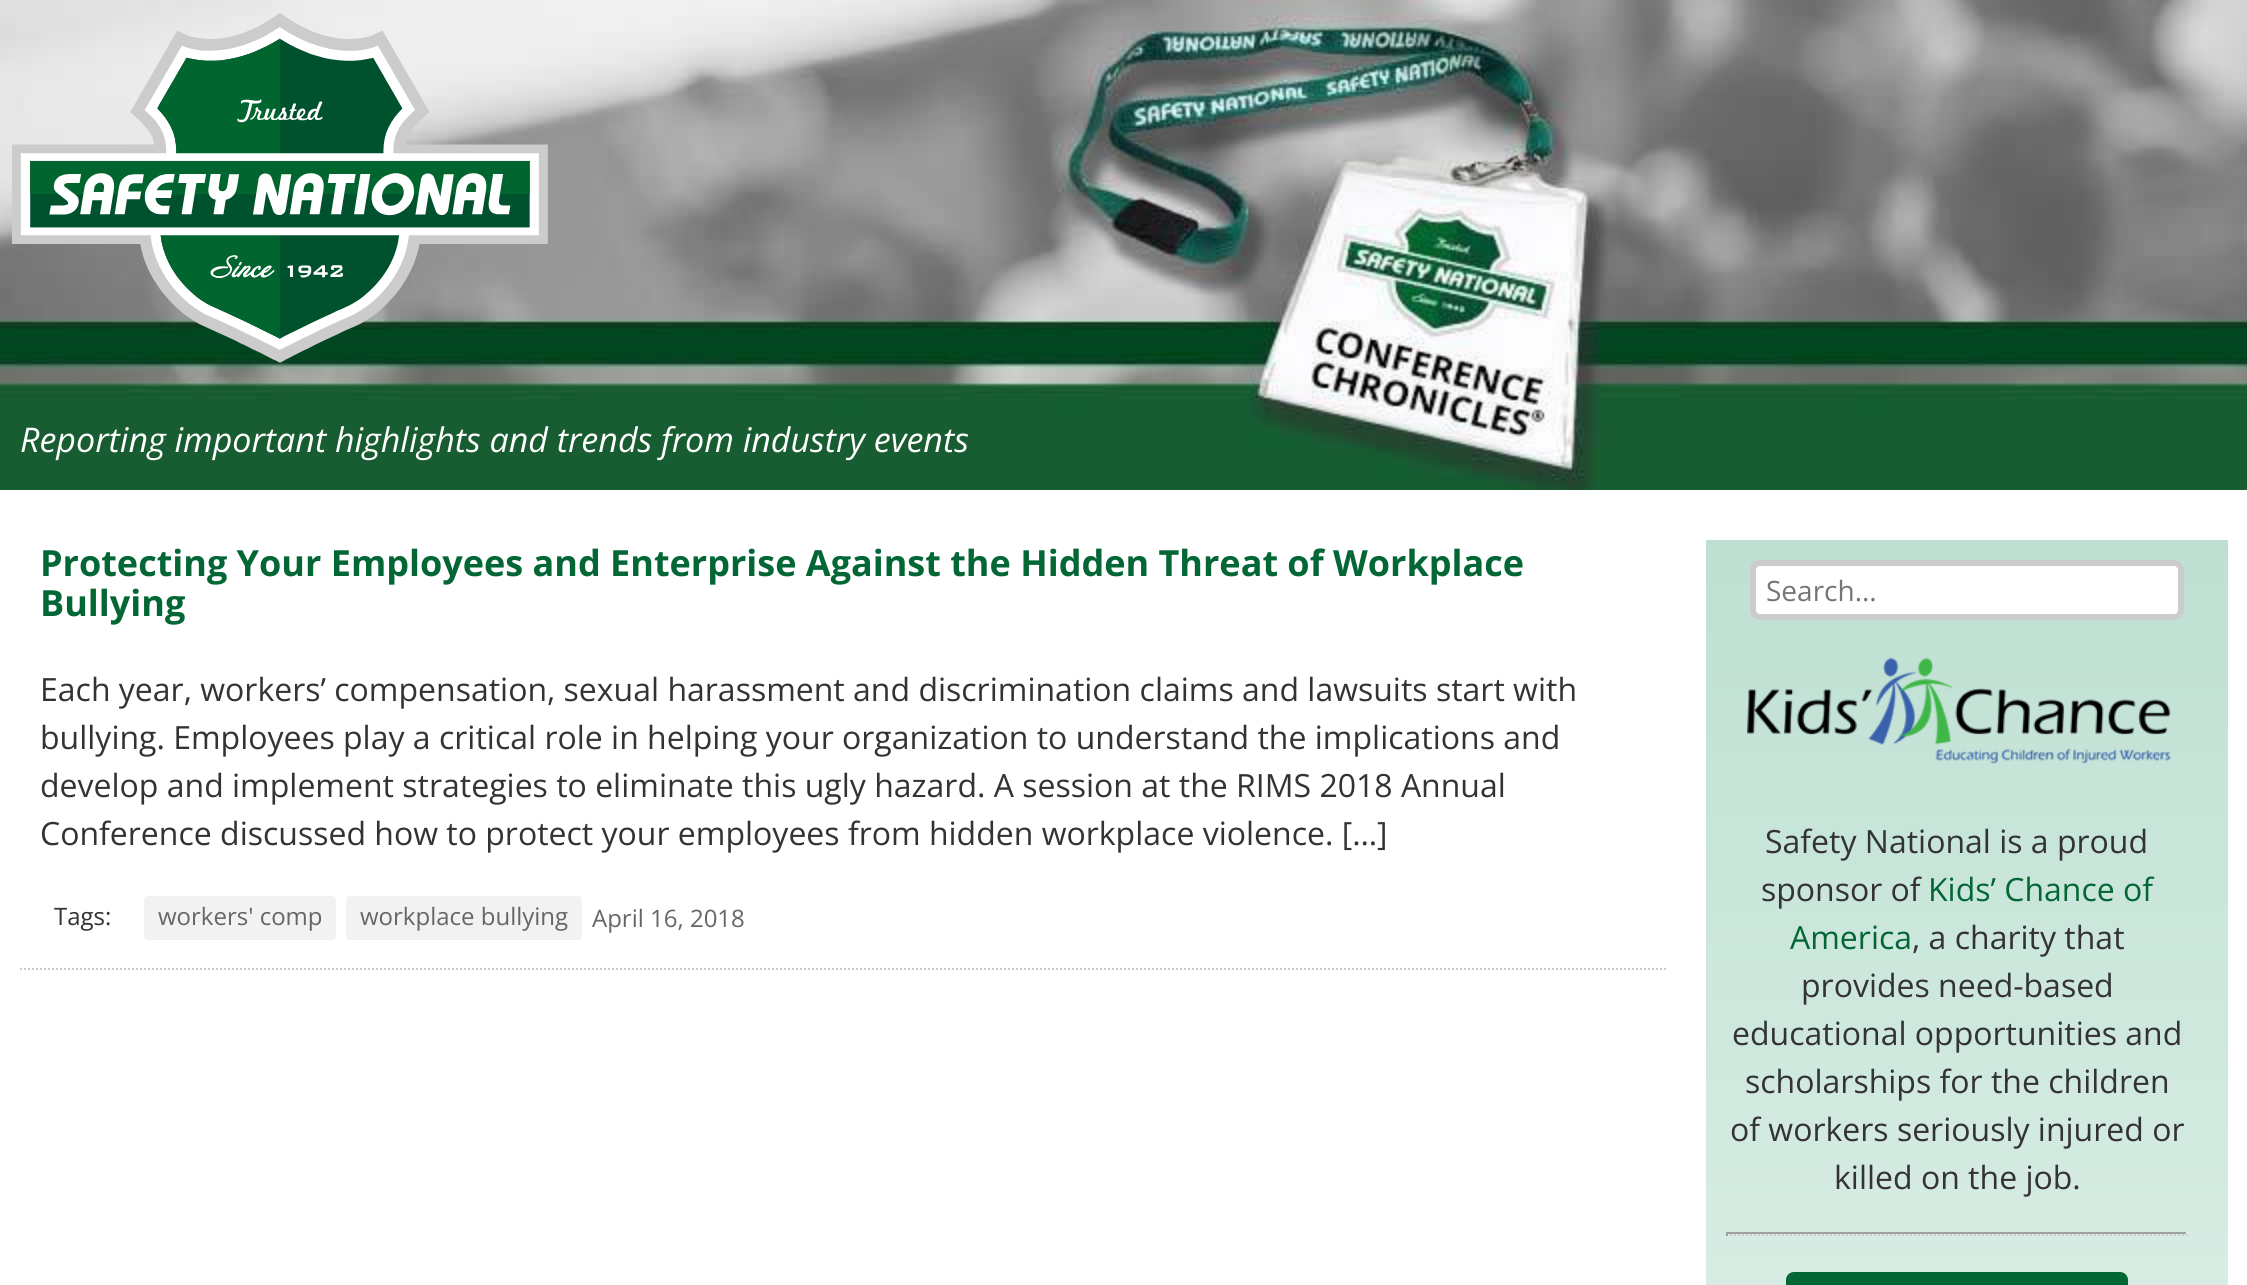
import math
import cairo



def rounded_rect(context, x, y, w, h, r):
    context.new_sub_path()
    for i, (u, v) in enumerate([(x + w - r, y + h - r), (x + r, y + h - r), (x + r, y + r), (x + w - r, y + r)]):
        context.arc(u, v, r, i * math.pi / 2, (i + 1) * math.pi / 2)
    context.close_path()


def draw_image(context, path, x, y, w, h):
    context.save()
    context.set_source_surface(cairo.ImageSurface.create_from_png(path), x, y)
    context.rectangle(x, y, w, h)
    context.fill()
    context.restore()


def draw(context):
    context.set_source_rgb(1, 1, 1)
    context.paint()
    draw_image(context, "images/1.png", 0, 0, 2247, 490)
    draw_image(context, "images/2.png", 11, 13, 537, 350)
    context.new_path()
    context.move_to(20, 969)
    context.line_to(1666, 969)
    context.set_source_rgb(204 / 255, 204 / 255, 204 / 255)
    context.set_dash([2, 2])
    context.stroke()
    context.set_source_rgb(242 / 255, 242 / 255, 242 / 255)
    rounded_rect(context, 144, 896, 192, 44, 4)
    context.fill()
    rounded_rect(context, 346, 896, 236, 44, 4)
    context.fill()
    gradient = cairo.LinearGradient(1967, 540, 1967, 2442)
    gradient.add_color_stop_rgba(0, 190 / 255, 224 / 255, 210 / 255, 1)
    gradient.add_color_stop_rgba(1, 1, 1, 1, 1)
    context.set_source(gradient)
    context.rectangle(1706, 540, 522, 745)
    context.fill()
    context.set_source_rgb(1, 1, 1)
    rounded_rect(context, 1753, 563, 428, 54, 7)
    context.fill_preserve()
    context.set_source_rgb(204 / 255, 204 / 255, 204 / 255)
    context.set_line_width(6)
    context.set_dash([])
    context.stroke()
    draw_image(context, "images/3.png", 1746, 657, 425, 107)
    context.set_source_rgb(159 / 255, 159 / 255, 159 / 255)
    context.rectangle(1726, 1232, 462, 2)
    context.fill()
    context.set_source_rgb(238 / 255, 238 / 255, 238 / 255)
    context.rectangle(2186, 1232, 2, 4)
    context.fill()
    context.new_path()
    context.move_to(1726, 1235)
    context.line_to(2188, 1235)
    context.set_source_rgb(204 / 255, 204 / 255, 204 / 255)
    context.set_line_width(2)
    context.set_dash([2, 2])
    context.stroke()
    context.set_source_rgb(159 / 255, 159 / 255, 159 / 255)
    context.rectangle(1726, 1232, 2, 4)
    context.fill()
    context.set_source_rgb(2 / 255, 102 / 255, 53 / 255)
    rounded_rect(context, 1786, 1272, 342, 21, 8)
    context.fill()
    context.select_font_face("Open Sans", cairo.FontSlant.ITALIC)
    context.set_font_size(34)
    context.set_source_rgb(1, 1, 1)
    context.move_to(20, 452)
    context.show_text("Reporting important highlights and trends from industry events")
    context.select_font_face("Open Sans", cairo.FontSlant.NORMAL, cairo.FontWeight.BOLD)
    context.set_font_size(36)
    context.set_source_rgb(2 / 255, 102 / 255, 53 / 255)
    context.move_to(40, 576)
    context.show_text("Protecting Your Employees and Enterprise Against the Hidden Threat of Workplace")
    context.move_to(40, 616)
    context.show_text("Bullying")
    context.select_font_face("Open Sans")
    context.set_font_size(32)
    context.set_source_rgb(51 / 255, 51 / 255, 51 / 255)
    context.move_to(40, 701)
    context.show_text("Each year, workers’ compensation, sexual harassment and discrimination claims and lawsuits start with")
    context.move_to(40, 749)
    context.show_text("bullying. Employees play a critical role in helping your organization to understand the implications and")
    context.move_to(40, 797)
    context.show_text("develop and implement strategies to eliminate this ugly hazard. A session at the RIMS 2018 Annual")
    context.move_to(40, 845)
    context.show_text("Conference discussed how to protect your employees from hidden workplace violence. […]")
    context.set_font_size(24)
    context.move_to(54, 925)
    context.show_text("Tags:")
    context.set_source_rgb(102 / 255, 102 / 255, 102 / 255)
    context.move_to(158, 925)
    context.show_text("workers' comp")
    context.move_to(360, 925)
    context.show_text("workplace bullying")
    context.move_to(592, 927)
    context.show_text("April 16, 2018")
    context.set_font_size(28)
    context.set_source_rgb(117 / 255, 117 / 255, 117 / 255)
    context.move_to(1766, 601)
    context.show_text("Search...")
    context.set_font_size(32)
    context.set_source_rgb(51 / 255, 51 / 255, 51 / 255)
    context.move_to(1765, 853)
    context.show_text("Safety National is a proud")
    context.move_to(1761, 901)
    context.show_text("sponsor of")
    context.set_source_rgb(2 / 255, 102 / 255, 53 / 255)
    context.move_to(1928, 901)
    context.show_text("Kids’ Chance of")
    context.move_to(1790, 949)
    context.show_text("America")
    context.set_source_rgb(51 / 255, 51 / 255, 51 / 255)
    context.move_to(1912, 949)
    context.show_text(", a charity that")
    context.move_to(1801, 997)
    context.show_text("provides need-based")
    context.move_to(1732, 1045)
    context.show_text("educational opportunities and")
    context.move_to(1745, 1093)
    context.show_text("scholarships for the children")
    context.move_to(1730, 1141)
    context.show_text("of workers seriously injured or")
    context.move_to(1834, 1189)
    context.show_text("killed on the job.")


surface = cairo.ImageSurface(cairo.Format.RGB24, 2247, 1285)
context = cairo.Context(surface)
options = cairo.FontOptions()
options.set_hint_metrics(cairo.HintMetrics.OFF)
options.set_hint_style(cairo.HintStyle.NONE)
context.set_font_options(options)
context.set_miter_limit(4)
draw(context)
surface.write_to_png("out.png")
